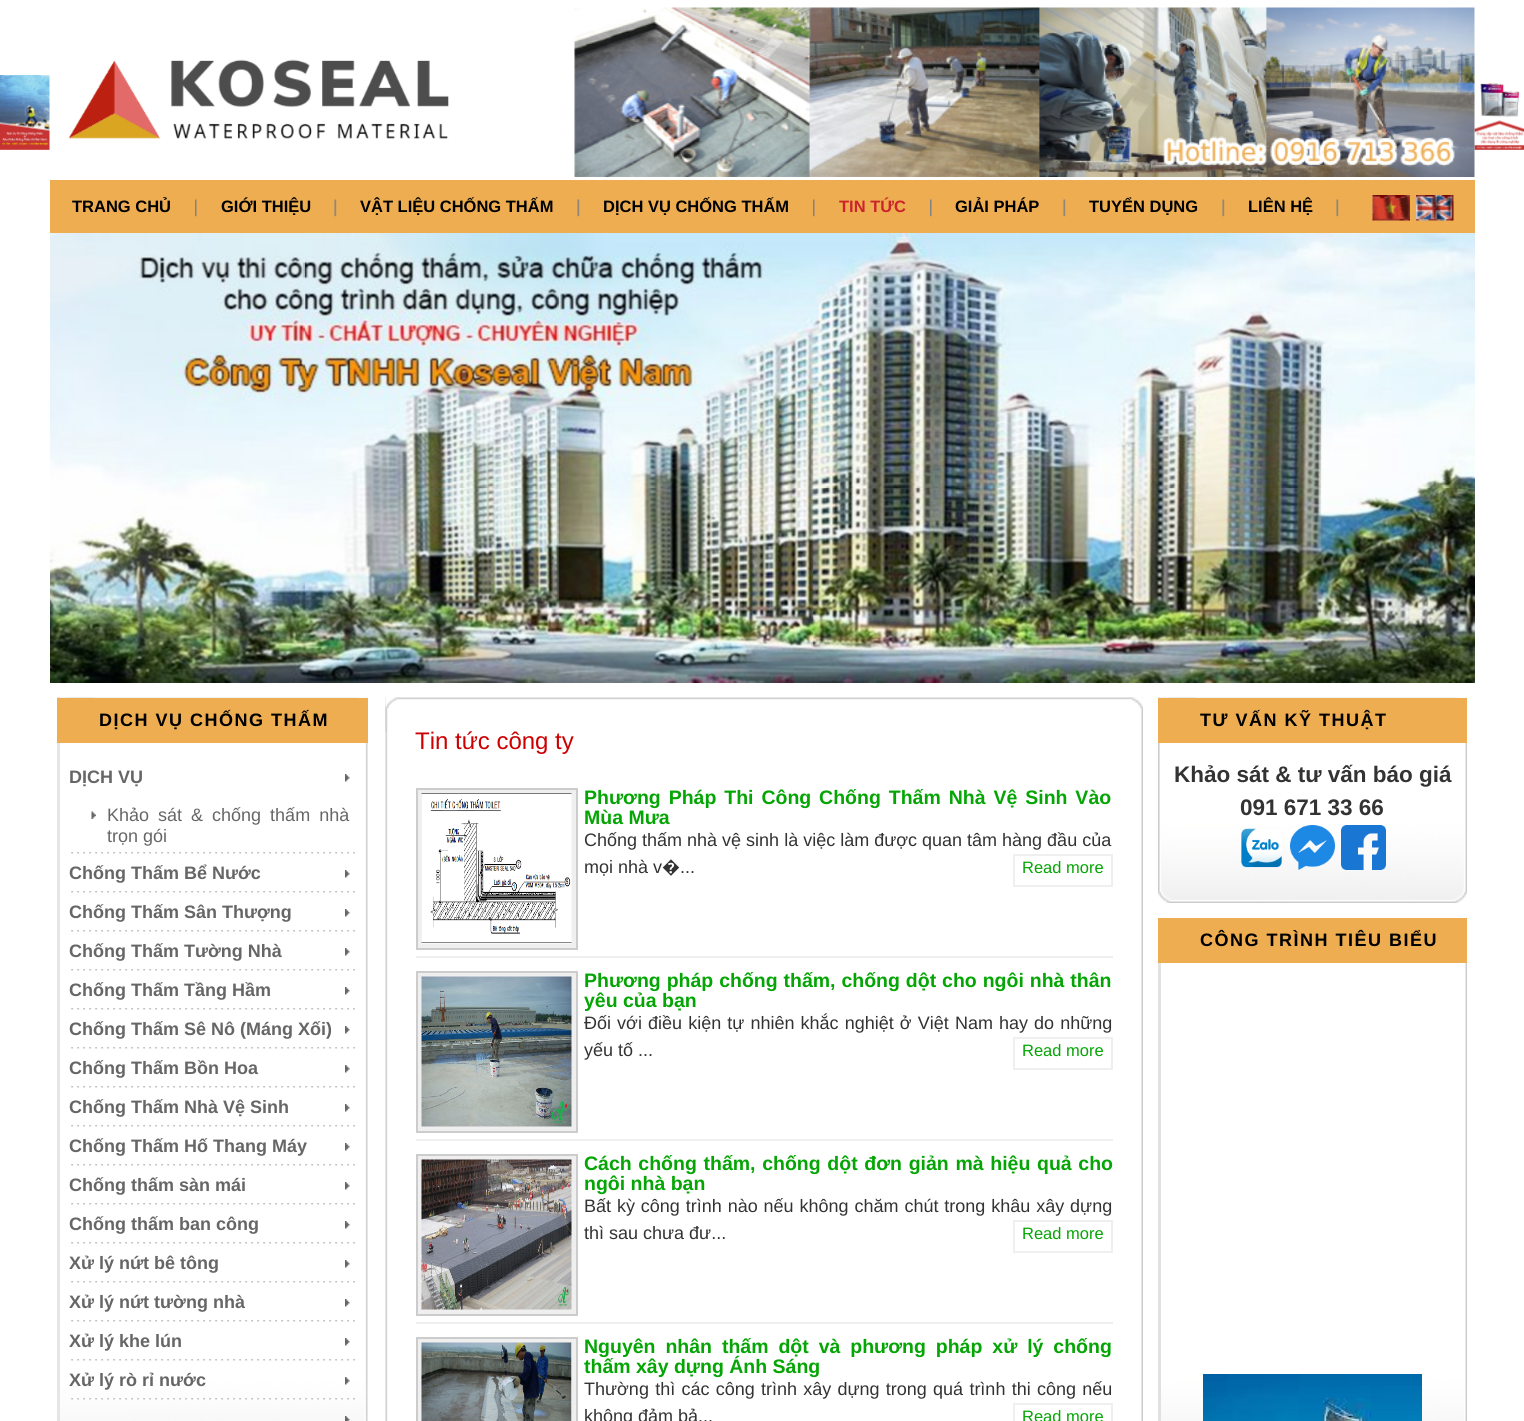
import math
import cairo



def draw_spaced(context, x, y, s, letter, word):
    context.move_to(x, y)
    for ch in s:
        context.show_text(ch)
        context.rel_move_to(letter + word * (ch == ' '), 0)


def draw_image(context, path, x, y, w, h):
    context.save()
    context.set_source_surface(cairo.ImageSurface.create_from_png(path), x, y)
    context.rectangle(x, y, w, h)
    context.fill()
    context.restore()


def draw(context):
    context.set_source_rgb(1, 1, 1)
    context.paint()
    draw_image(context, "images/1.png", 0, 75, 50, 75)
    draw_image(context, "images/2.png", 1474, 82, 50, 68)
    draw_image(context, "images/3.png", 49, 59, 400, 91)
    draw_image(context, "images/4.png", 574, 7, 901, 170)
    context.set_source_rgb(238 / 255, 173 / 255, 81 / 255)
    context.rectangle(50, 180, 1425, 53)
    context.fill()
    draw_image(context, "images/5.png", 195, 199, 2, 18)
    draw_image(context, "images/6.png", 334, 199, 3, 18)
    draw_image(context, "images/6.png", 577, 199, 3, 18)
    draw_image(context, "images/5.png", 813, 199, 2, 18)
    draw_image(context, "images/5.png", 930, 199, 2, 18)
    draw_image(context, "images/6.png", 1063, 199, 3, 18)
    draw_image(context, "images/6.png", 1222, 199, 3, 18)
    draw_image(context, "images/6.png", 1336, 199, 3, 18)
    draw_image(context, "images/7.png", 1372, 195, 38, 26)
    draw_image(context, "images/8.png", 1416, 195, 38, 26)
    draw_image(context, "images/9.png", 50, 233, 1425, 450)
    draw_image(context, "images/10.png", 60, 697, 308, 724)
    context.set_source_rgb(229 / 255, 229 / 255, 229 / 255)
    context.rectangle(57, 697, 3, 724)
    context.fill()
    draw_image(context, "images/11.png", 57, 697, 311, 1)
    draw_image(context, "images/12.png", 57, 697, 38, 1)
    context.set_source_rgb(238 / 255, 173 / 255, 81 / 255)
    context.rectangle(57, 698, 311, 45)
    context.fill()
    draw_image(context, "images/13.png", 71, 852, 284, 2)
    draw_image(context, "images/14.png", 345, 774, 5, 8)
    draw_image(context, "images/15.png", 91, 811, 5, 8)
    draw_image(context, "images/13.png", 71, 891, 284, 2)
    draw_image(context, "images/14.png", 345, 870, 5, 8)
    draw_image(context, "images/13.png", 71, 930, 284, 2)
    draw_image(context, "images/14.png", 345, 909, 5, 8)
    draw_image(context, "images/13.png", 71, 969, 284, 2)
    draw_image(context, "images/14.png", 345, 948, 5, 8)
    draw_image(context, "images/13.png", 71, 1008, 284, 2)
    draw_image(context, "images/14.png", 345, 987, 5, 8)
    draw_image(context, "images/13.png", 71, 1047, 284, 2)
    draw_image(context, "images/14.png", 345, 1026, 5, 8)
    draw_image(context, "images/13.png", 71, 1086, 284, 2)
    draw_image(context, "images/14.png", 345, 1065, 5, 8)
    draw_image(context, "images/13.png", 71, 1125, 284, 2)
    draw_image(context, "images/14.png", 345, 1104, 5, 8)
    draw_image(context, "images/13.png", 71, 1164, 284, 2)
    draw_image(context, "images/14.png", 345, 1143, 5, 8)
    draw_image(context, "images/13.png", 71, 1203, 284, 2)
    draw_image(context, "images/14.png", 345, 1182, 5, 8)
    draw_image(context, "images/13.png", 71, 1242, 284, 2)
    draw_image(context, "images/14.png", 345, 1221, 5, 8)
    draw_image(context, "images/13.png", 71, 1281, 284, 2)
    draw_image(context, "images/14.png", 345, 1260, 5, 8)
    draw_image(context, "images/13.png", 71, 1320, 284, 2)
    draw_image(context, "images/14.png", 345, 1299, 5, 8)
    draw_image(context, "images/13.png", 71, 1359, 284, 2)
    draw_image(context, "images/14.png", 345, 1338, 5, 8)
    draw_image(context, "images/16.png", 71, 1398, 284, 2)
    draw_image(context, "images/17.png", 345, 1377, 5, 8)
    draw_image(context, "images/18.png", 345, 1416, 5, 5)
    draw_image(context, "images/19.png", 385, 697, 758, 724)
    draw_image(context, "images/20.png", 385, 697, 758, 35)
    context.set_source_rgb(239 / 255, 239 / 255, 239 / 255)
    context.rectangle(416, 956, 697, 2)
    context.fill()
    context.rectangle(417, 789, 160, 160)
    context.fill_preserve()
    context.set_source_rgb(204 / 255, 204 / 255, 204 / 255)
    context.stroke()
    draw_image(context, "images/21.png", 421, 793, 151, 151)
    context.rectangle(1014, 855, 98, 31)
    context.set_source_rgb(239 / 255, 239 / 255, 239 / 255)
    context.stroke()
    context.rectangle(416, 1139, 697, 2)
    context.fill()
    context.rectangle(417, 972, 160, 160)
    context.fill_preserve()
    context.set_source_rgb(204 / 255, 204 / 255, 204 / 255)
    context.stroke()
    draw_image(context, "images/22.png", 421, 976, 151, 151)
    context.rectangle(1014, 1038, 98, 31)
    context.set_source_rgb(239 / 255, 239 / 255, 239 / 255)
    context.stroke()
    context.rectangle(416, 1322, 697, 2)
    context.fill()
    context.rectangle(417, 1155, 160, 160)
    context.fill_preserve()
    context.set_source_rgb(204 / 255, 204 / 255, 204 / 255)
    context.stroke()
    draw_image(context, "images/23.png", 421, 1159, 151, 151)
    context.rectangle(1014, 1221, 98, 31)
    context.set_source_rgb(239 / 255, 239 / 255, 239 / 255)
    context.stroke()
    context.rectangle(417, 1338, 160, 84)
    context.fill_preserve()
    context.set_source_rgb(204 / 255, 204 / 255, 204 / 255)
    context.stroke()
    draw_image(context, "images/24.png", 421, 1342, 151, 79)
    context.rectangle(1014, 1404, 98, 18)
    context.set_source_rgb(239 / 255, 239 / 255, 239 / 255)
    context.stroke()
    draw_image(context, "images/25.png", 1158, 697, 309, 206)
    draw_image(context, "images/26.png", 1158, 697, 13, 206)
    draw_image(context, "images/27.png", 1158, 697, 309, 1)
    draw_image(context, "images/28.png", 1158, 697, 38, 1)
    context.set_source_rgb(238 / 255, 173 / 255, 81 / 255)
    context.rectangle(1158, 698, 309, 45)
    context.fill()
    draw_image(context, "images/29.png", 1241, 828, 41, 40)
    draw_image(context, "images/30.png", 1290, 825, 45, 45)
    draw_image(context, "images/31.png", 1341, 825, 45, 45)
    draw_image(context, "images/32.png", 1161, 963, 306, 458)
    context.set_source_rgb(225 / 255, 225 / 255, 225 / 255)
    context.rectangle(1158, 963, 3, 458)
    context.fill()
    context.set_source_rgb(238 / 255, 173 / 255, 81 / 255)
    context.rectangle(1158, 918, 309, 45)
    context.fill()
    draw_image(context, "images/33.png", 1203, 1374, 219, 47)
    context.select_font_face("Liberation Sans", cairo.FontSlant.NORMAL, cairo.FontWeight.BOLD)
    context.set_font_size(16.5)
    context.set_source_rgb(0, 0, 0)
    context.move_to(72, 212)
    context.show_text("TRANG CHỦ")
    context.move_to(221, 212)
    context.show_text("GIỚI THIỆU")
    context.move_to(360, 212)
    context.show_text("VẬT LIỆU CHỐNG THẤM")
    context.move_to(603, 212)
    context.show_text("DỊCH VỤ CHỐNG THẤM")
    context.set_source_rgb(202 / 255, 37 / 255, 43 / 255)
    context.move_to(839, 212)
    context.show_text("TIN TỨC")
    context.set_source_rgb(0, 0, 0)
    context.move_to(955, 212)
    context.show_text("GIẢI PHÁP")
    context.move_to(1089, 212)
    context.show_text("TUYỂN DỤNG")
    context.move_to(1248, 212)
    context.show_text("LIÊN HỆ")
    context.set_font_size(18)
    draw_spaced(context, 99, 726, "DỊCH VỤ CHỐNG THẤM", 1.5, 0)
    context.set_source_rgb(102 / 255, 102 / 255, 102 / 255)
    context.move_to(69, 783)
    context.show_text("DỊCH VỤ")
    context.select_font_face("Liberation Sans")
    draw_spaced(context, 107, 821, "Khảo sát & chống thấm nhà", 0, 4)
    context.move_to(107, 842)
    context.show_text("trọn gói")
    context.select_font_face("Liberation Sans", cairo.FontSlant.NORMAL, cairo.FontWeight.BOLD)
    context.move_to(69, 879)
    context.show_text("Chống Thấm Bể Nước")
    context.move_to(69, 918)
    context.show_text("Chống Thấm Sân Thượng")
    context.move_to(69, 957)
    context.show_text("Chống Thấm Tường Nhà")
    context.move_to(69, 996)
    context.show_text("Chống Thấm Tầng Hầm")
    context.move_to(69, 1035)
    context.show_text("Chống Thấm Sê Nô (Máng Xối)")
    context.move_to(69, 1074)
    context.show_text("Chống Thấm Bồn Hoa")
    context.move_to(69, 1113)
    context.show_text("Chống Thấm Nhà Vệ Sinh")
    context.move_to(69, 1152)
    context.show_text("Chống Thấm Hố Thang Máy")
    context.move_to(69, 1191)
    context.show_text("Chống thấm sàn mái")
    context.move_to(69, 1230)
    context.show_text("Chống thấm ban công")
    context.move_to(69, 1269)
    context.show_text("Xử lý nứt bê tông")
    context.move_to(69, 1308)
    context.show_text("Xử lý nứt tường nhà")
    context.move_to(69, 1347)
    context.show_text("Xử lý khe lún")
    context.move_to(69, 1386)
    context.show_text("Xử lý rò rỉ nước")
    context.select_font_face("Liberation Sans")
    context.set_font_size(24)
    context.set_source_rgb(204 / 255, 0, 0)
    context.move_to(415, 749)
    context.show_text("Tin tức công ty")
    context.select_font_face("Liberation Sans", cairo.FontSlant.NORMAL, cairo.FontWeight.BOLD)
    context.set_font_size(19.5)
    context.set_source_rgb(4 / 255, 165 / 255, 4 / 255)
    draw_spaced(context, 584, 804, "Phương Pháp Thi Công Chống Thấm Nhà Vệ Sinh Vào", 0, 2.5)
    context.move_to(584, 824)
    context.show_text("Mùa Mưa")
    context.select_font_face("Liberation Sans")
    context.set_font_size(18)
    context.set_source_rgb(51 / 255, 51 / 255, 51 / 255)
    context.move_to(584, 846)
    context.show_text("Chống thấm nhà vệ sinh là việc làm được quan tâm hàng đầu của")
    context.move_to(584, 873)
    context.show_text("mọi nhà v")
    context.select_font_face("Noto Sans")
    context.move_to(662, 873)
    context.show_text("�")
    context.select_font_face("Liberation Sans")
    context.move_to(680, 873)
    context.show_text("...")
    context.set_font_size(16.5)
    context.set_source_rgb(4 / 255, 165 / 255, 4 / 255)
    context.move_to(1022, 873)
    context.show_text("Read more")
    context.select_font_face("Liberation Sans", cairo.FontSlant.NORMAL, cairo.FontWeight.BOLD)
    context.set_font_size(19.5)
    draw_spaced(context, 584, 987, "Phương pháp chống thấm, chống dột cho ngôi nhà thân", 0, 0.5)
    context.move_to(584, 1007)
    context.show_text("yêu của bạn")
    context.select_font_face("Liberation Sans")
    context.set_font_size(18)
    context.set_source_rgb(51 / 255, 51 / 255, 51 / 255)
    draw_spaced(context, 584, 1029, "Đối với điều kiện tự nhiên khắc nghiệt ở Việt Nam hay do những", 0, 1.1)
    context.move_to(584, 1056)
    context.show_text("yếu tố ...")
    context.set_font_size(16.5)
    context.set_source_rgb(4 / 255, 165 / 255, 4 / 255)
    context.move_to(1022, 1056)
    context.show_text("Read more")
    context.select_font_face("Liberation Sans", cairo.FontSlant.NORMAL, cairo.FontWeight.BOLD)
    context.set_font_size(19.5)
    draw_spaced(context, 584, 1170, "Cách chống thấm, chống dột đơn giản mà hiệu quả cho", 0, 1.25)
    context.move_to(584, 1190)
    context.show_text("ngôi nhà bạn")
    context.select_font_face("Liberation Sans")
    context.set_font_size(18)
    context.set_source_rgb(51 / 255, 51 / 255, 51 / 255)
    draw_spaced(context, 584, 1212, "Bất kỳ công trình nào nếu không chăm chút trong khâu xây dựng", 0, 0.9)
    context.move_to(584, 1239)
    context.show_text("thì sau chưa đư...")
    context.set_font_size(16.5)
    context.set_source_rgb(4 / 255, 165 / 255, 4 / 255)
    context.move_to(1022, 1239)
    context.show_text("Read more")
    context.select_font_face("Liberation Sans", cairo.FontSlant.NORMAL, cairo.FontWeight.BOLD)
    context.set_font_size(19.5)
    draw_spaced(context, 584, 1353, "Nguyên nhân thấm dột và phương pháp xử lý chống", 0, 4.5)
    context.move_to(584, 1373)
    context.show_text("thấm xây dựng Ánh Sáng")
    context.select_font_face("Liberation Sans")
    context.set_font_size(18)
    context.set_source_rgb(51 / 255, 51 / 255, 51 / 255)
    draw_spaced(context, 584, 1395, "Thường thì các công trình xây dựng trong quá trình thi công nếu", 0, 1.25)
    context.move_to(584, 1422)
    context.show_text("không đảm bả...")
    context.set_font_size(16.5)
    context.set_source_rgb(4 / 255, 165 / 255, 4 / 255)
    context.move_to(1022, 1422)
    context.show_text("Read more")
    context.select_font_face("Liberation Sans", cairo.FontSlant.NORMAL, cairo.FontWeight.BOLD)
    context.set_font_size(18)
    context.set_source_rgb(0, 0, 0)
    draw_spaced(context, 1200, 726, "TƯ VẤN KỸ THUẬT", 1.5, 0)
    context.set_font_size(22.5)
    context.set_source_rgb(51 / 255, 51 / 255, 51 / 255)
    context.move_to(1174, 782)
    context.show_text("Khảo sát & tư vấn báo giá")
    context.move_to(1240, 815)
    context.show_text("091 671 33 66")
    context.set_font_size(18)
    context.set_source_rgb(0, 0, 0)
    draw_spaced(context, 1200, 946, "CÔNG TRÌNH TIÊU BIỂU", 1.5, 0)


surface = cairo.ImageSurface(cairo.Format.RGB24, 1524, 1421)
context = cairo.Context(surface)
options = cairo.FontOptions()
options.set_hint_metrics(cairo.HintMetrics.OFF)
options.set_hint_style(cairo.HintStyle.NONE)
context.set_font_options(options)
context.set_miter_limit(4)
draw(context)
surface.write_to_png("out.png")
